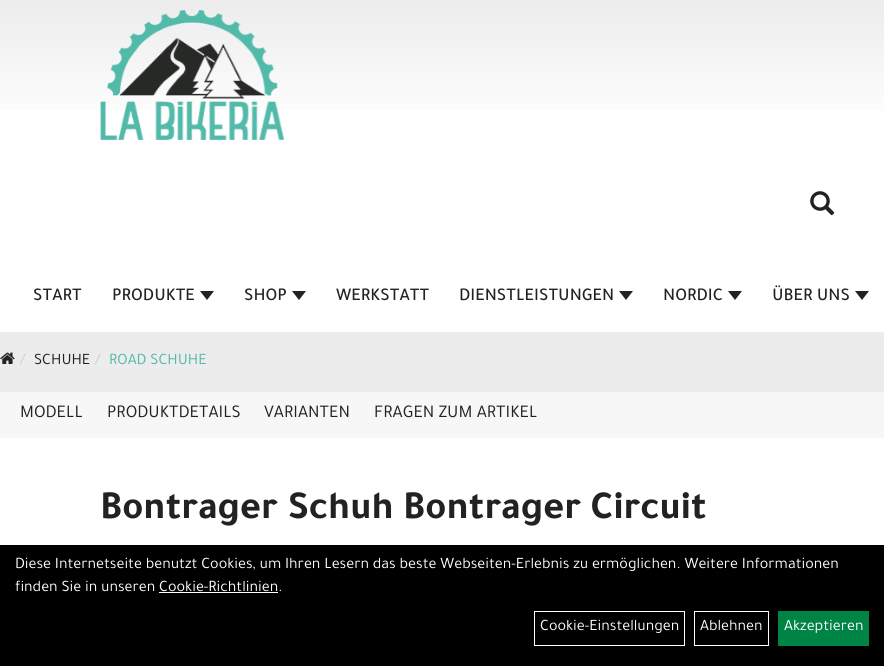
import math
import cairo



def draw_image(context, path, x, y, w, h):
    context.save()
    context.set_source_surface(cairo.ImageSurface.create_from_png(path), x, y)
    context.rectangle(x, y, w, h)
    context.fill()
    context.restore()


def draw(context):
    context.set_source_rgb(1, 1, 1)
    context.paint()
    gradient = cairo.LinearGradient(442, 0, 442, 332)
    gradient.add_color_stop_rgba(0, 236 / 255, 236 / 255, 236 / 255, 1)
    gradient.add_color_stop_rgba(0.38, 1, 1, 1, 1)
    context.set_source(gradient)
    context.rectangle(0, 0, 884, 110)
    context.fill()
    draw_image(context, "images/1.png", 100, 10, 184, 130)
    draw_image(context, "images/2.png", 810, 191, 25, 25)
    context.set_source_rgb(34 / 255, 34 / 255, 34 / 255)
    context.new_path()
    context.move_to(200, 291)
    context.line_to(214, 291)
    context.line_to(207, 300)
    context.close_path()
    context.fill()
    context.new_path()
    context.move_to(292, 291)
    context.line_to(306, 291)
    context.line_to(299, 300)
    context.close_path()
    context.fill()
    context.new_path()
    context.move_to(619, 291)
    context.line_to(633, 291)
    context.line_to(626, 300)
    context.close_path()
    context.fill()
    context.new_path()
    context.move_to(728, 291)
    context.line_to(742, 291)
    context.line_to(735, 300)
    context.close_path()
    context.fill()
    context.new_path()
    context.move_to(855, 291)
    context.line_to(869, 291)
    context.line_to(862, 300)
    context.close_path()
    context.fill()
    context.set_source_rgb(236 / 255, 236 / 255, 236 / 255)
    context.rectangle(0, 332, 884, 60)
    context.fill()
    draw_image(context, "images/3.png", 0, 352, 15, 12)
    context.set_source_rgb(247 / 255, 247 / 255, 247 / 255)
    context.rectangle(0, 392, 884, 46)
    context.fill()
    context.set_source_rgb(0, 0, 0)
    context.rectangle(0, 545, 884, 121)
    context.fill()
    context.set_source_rgb(1, 1, 1)
    context.rectangle(159, 592, 119, 1)
    context.fill()
    context.rectangle(534.5, 611.5, 150, 34)
    context.set_line_width(1)
    context.stroke()
    context.rectangle(694.5, 611.5, 74, 34)
    context.stroke()
    context.set_source_rgb(0, 132 / 255, 70 / 255)
    context.rectangle(778, 611, 91, 35)
    context.fill()
    context.select_font_face("Tajawal Medium")
    context.set_font_size(18)
    context.set_source_rgb(34 / 255, 34 / 255, 34 / 255)
    context.move_to(33, 300)
    context.show_text("START")
    context.move_to(112, 300)
    context.show_text("PRODUKTE")
    context.move_to(244, 300)
    context.show_text("SHOP")
    context.move_to(336, 300)
    context.show_text("WERKSTATT")
    context.move_to(459, 300)
    context.show_text("DIENSTLEISTUNGEN")
    context.move_to(663, 300)
    context.show_text("NORDIC")
    context.move_to(772, 300)
    context.show_text("ÜBER UNS")
    context.select_font_face("Tajawal")
    context.set_font_size(16)
    context.set_source_rgb(204 / 255, 204 / 255, 204 / 255)
    context.move_to(20, 364)
    context.show_text("/")
    context.set_source_rgb(34 / 255, 34 / 255, 34 / 255)
    context.move_to(34, 364)
    context.show_text("SCHUHE")
    context.set_source_rgb(204 / 255, 204 / 255, 204 / 255)
    context.move_to(95, 364)
    context.show_text("/")
    context.set_source_rgb(82 / 255, 186 / 255, 169 / 255)
    context.move_to(109, 364)
    context.show_text("ROAD SCHUHE")
    context.set_font_size(18)
    context.set_source_rgb(34 / 255, 34 / 255, 34 / 255)
    context.move_to(20, 417)
    context.show_text("MODELL")
    context.move_to(107, 417)
    context.show_text("PRODUKTDETAILS")
    context.move_to(264, 417)
    context.show_text("VARIANTEN")
    context.move_to(374, 417)
    context.show_text("FRAGEN ZUM ARTIKEL")
    context.select_font_face("Tajawal", cairo.FontSlant.NORMAL, cairo.FontWeight.BOLD)
    context.set_font_size(40)
    context.move_to(100, 518)
    context.show_text("Bontrager Schuh Bontrager Circuit")
    context.select_font_face("Tajawal")
    context.set_font_size(16)
    context.set_source_rgb(1, 1, 1)
    context.move_to(15, 568)
    context.show_text("Diese Internetseite benutzt Cookies, um Ihren Lesern das beste Webseiten-Erlebnis zu ermöglichen. Weitere Informationen")
    context.move_to(15, 591)
    context.show_text("finden Sie in unseren Cookie-Richtlinien.")
    context.move_to(540, 630)
    context.show_text("Cookie-Einstellungen")
    context.move_to(700, 630)
    context.show_text("Ablehnen")
    context.move_to(784, 630)
    context.show_text("Akzeptieren")


surface = cairo.ImageSurface(cairo.Format.RGB24, 884, 666)
context = cairo.Context(surface)
options = cairo.FontOptions()
options.set_hint_metrics(cairo.HintMetrics.OFF)
options.set_hint_style(cairo.HintStyle.NONE)
context.set_font_options(options)
context.set_miter_limit(4)
draw(context)
surface.write_to_png("out.png")
